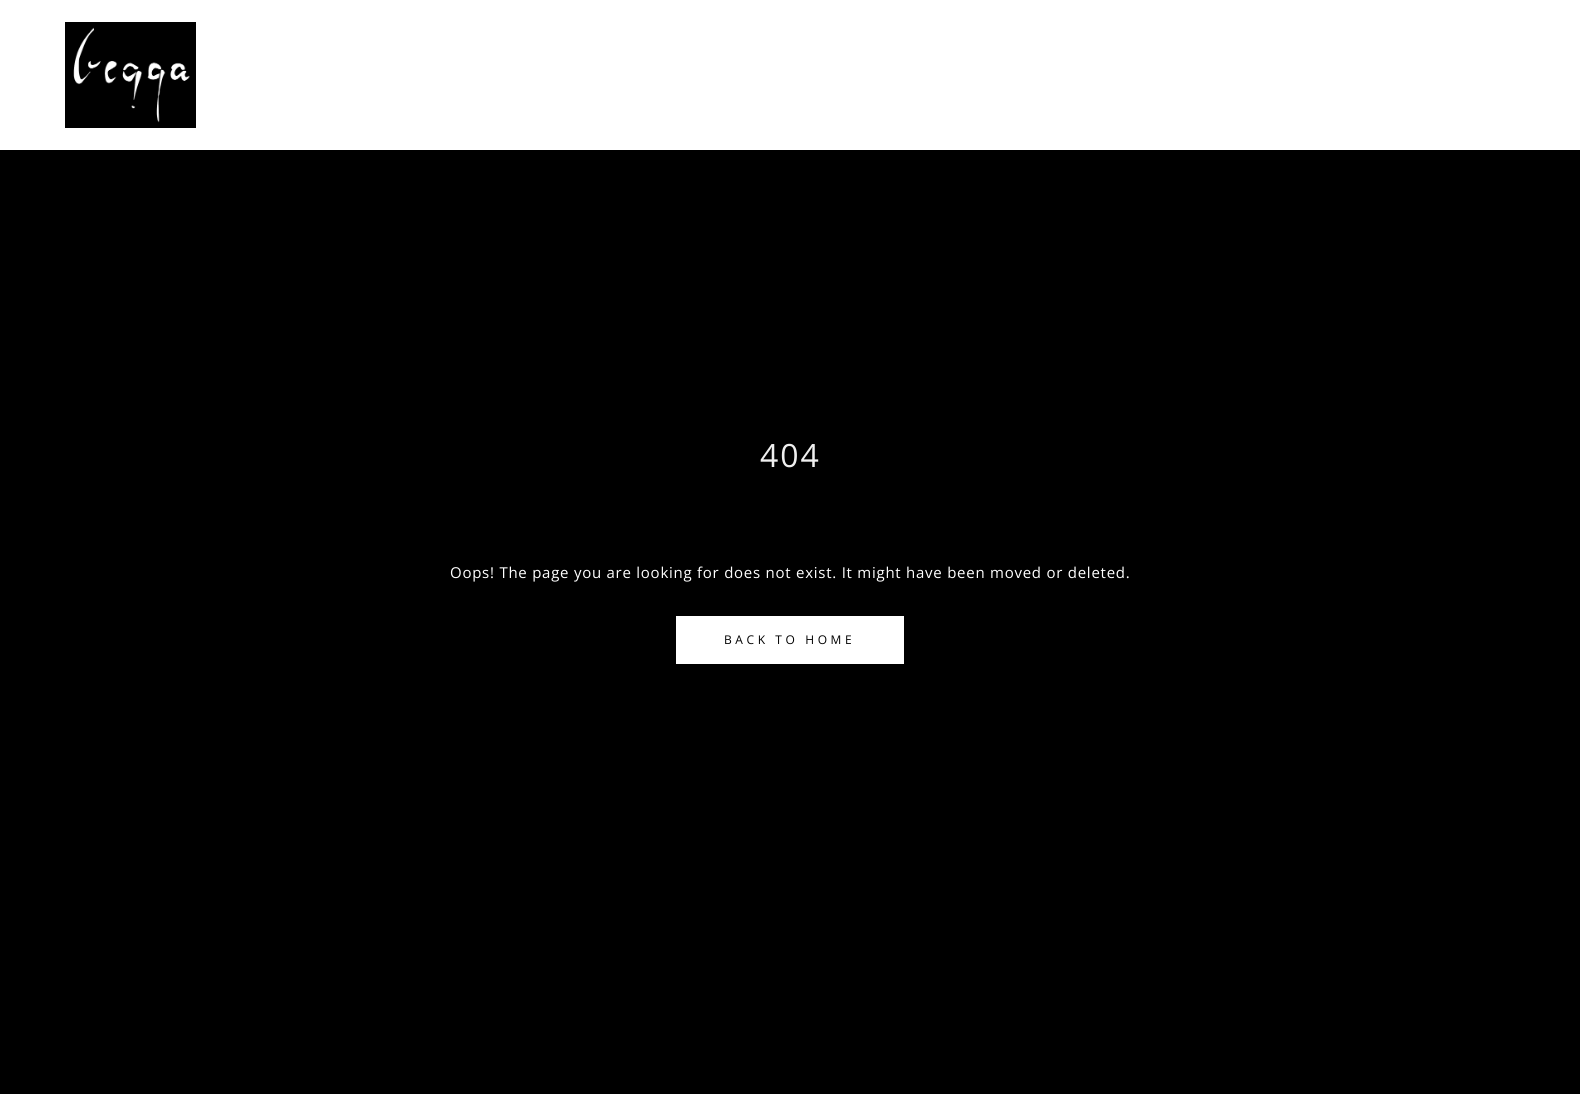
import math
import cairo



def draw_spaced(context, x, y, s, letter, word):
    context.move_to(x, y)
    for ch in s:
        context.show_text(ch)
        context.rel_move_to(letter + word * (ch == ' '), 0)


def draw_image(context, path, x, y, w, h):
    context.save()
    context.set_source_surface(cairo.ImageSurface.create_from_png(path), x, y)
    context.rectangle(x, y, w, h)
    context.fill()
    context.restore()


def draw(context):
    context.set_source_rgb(0, 0, 0)
    context.paint()
    context.set_source_rgb(1, 1, 1)
    context.rectangle(0, 0, 1580, 150)
    context.fill()
    draw_image(context, "images/1.png", 65, 22, 131, 106)
    context.rectangle(676, 616, 228, 48)
    context.fill()
    context.select_font_face("Open Sans")
    context.set_font_size(32)
    context.set_source_rgb(239 / 255, 239 / 255, 239 / 255)
    draw_spaced(context, 760, 467, "404", 2, 0)
    context.set_font_size(15)
    context.set_source_rgb(1, 1, 1)
    draw_spaced(context, 450, 578, "Oops! The page you are looking for does not exist. It might have been moved or deleted.", 0.75, 0)
    context.set_font_size(12)
    context.set_source_rgb(0, 0, 0)
    draw_spaced(context, 724, 644, "BACK TO HOME", 3.6, 0)


surface = cairo.ImageSurface(cairo.Format.RGB24, 1580, 1094)
context = cairo.Context(surface)
options = cairo.FontOptions()
options.set_hint_metrics(cairo.HintMetrics.OFF)
options.set_hint_style(cairo.HintStyle.NONE)
context.set_font_options(options)
context.set_miter_limit(4)
draw(context)
surface.write_to_png("out.png")
